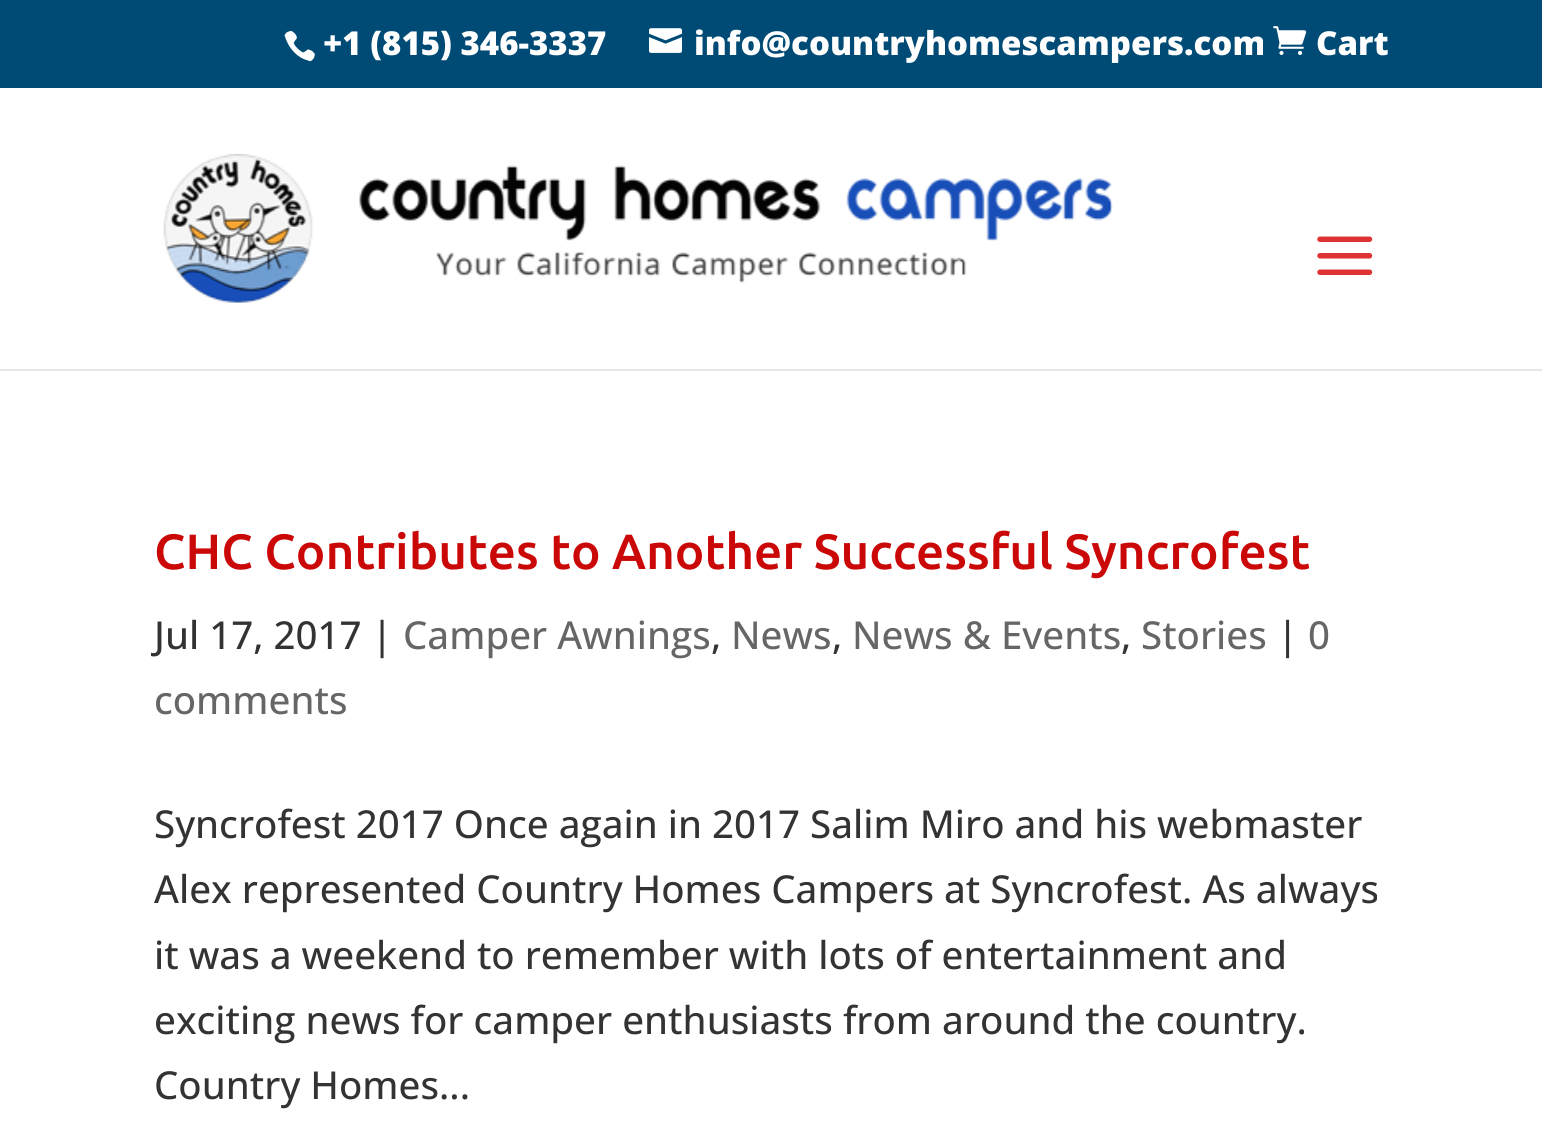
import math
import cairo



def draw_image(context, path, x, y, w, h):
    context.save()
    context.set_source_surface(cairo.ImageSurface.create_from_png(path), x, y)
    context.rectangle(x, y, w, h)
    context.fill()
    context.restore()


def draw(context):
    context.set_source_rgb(1, 1, 1)
    context.paint()
    context.set_source_rgb(0, 75 / 255, 117 / 255)
    context.rectangle(0, 0, 1542, 88)
    context.fill()
    draw_image(context, "images/1.png", 284, 31, 31, 31)
    draw_image(context, "images/2.png", 649, 28, 33, 25)
    draw_image(context, "images/3.png", 1273, 26, 34, 29)
    context.set_source_rgb(230 / 255, 230 / 255, 230 / 255)
    context.new_path()
    context.move_to(0, 368)
    context.line_to(0, 371)
    context.line_to(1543, 371)
    context.line_to(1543, 91)
    context.line_to(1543, 368)
    context.close_path()
    context.fill()
    context.set_source_rgba(1, 1, 1, 0.98)
    context.rectangle(0, 368, 1542, 1)
    context.fill()
    draw_image(context, "images/4.png", 163, 154, 950, 149)
    draw_image(context, "images/5.png", 1317, 236, 56, 39)
    context.select_font_face("Open Sans ExtraBold")
    context.set_font_size(33)
    context.set_source_rgb(1, 1, 1)
    context.move_to(323, 55)
    context.show_text("+1 (815) 346-3337")
    context.move_to(694, 55)
    context.show_text("info@countryhomescampers.com")
    context.move_to(1316, 55)
    context.show_text("Cart")
    context.select_font_face("Ubuntu Medium")
    context.set_font_size(49.5)
    context.set_source_rgb(203 / 255, 8 / 255, 8 / 255)
    context.move_to(154, 569)
    context.show_text("CHC Contributes to Another Successful Syncrofest")
    context.select_font_face("Open Sans Medium")
    context.set_font_size(38.5)
    context.set_source_rgb(51 / 255, 51 / 255, 51 / 255)
    context.move_to(154, 649)
    context.show_text("Jul 17, 2017 |")
    context.set_source_rgb(102 / 255, 102 / 255, 102 / 255)
    context.move_to(403, 649)
    context.show_text("Camper Awnings")
    context.set_source_rgb(51 / 255, 51 / 255, 51 / 255)
    context.move_to(711, 649)
    context.show_text(",")
    context.set_source_rgb(102 / 255, 102 / 255, 102 / 255)
    context.move_to(731, 649)
    context.show_text("News")
    context.set_source_rgb(51 / 255, 51 / 255, 51 / 255)
    context.move_to(832, 649)
    context.show_text(",")
    context.set_source_rgb(102 / 255, 102 / 255, 102 / 255)
    context.move_to(852, 649)
    context.show_text("News & Events")
    context.set_source_rgb(51 / 255, 51 / 255, 51 / 255)
    context.move_to(1121, 649)
    context.show_text(",")
    context.set_source_rgb(102 / 255, 102 / 255, 102 / 255)
    context.move_to(1141, 649)
    context.show_text("Stories")
    context.set_source_rgb(51 / 255, 51 / 255, 51 / 255)
    context.move_to(1277, 649)
    context.show_text("|")
    context.set_source_rgb(102 / 255, 102 / 255, 102 / 255)
    context.move_to(1308, 649)
    context.show_text("0")
    context.move_to(154, 714)
    context.show_text("comments")
    context.set_source_rgb(51 / 255, 51 / 255, 51 / 255)
    context.move_to(154, 838)
    context.show_text("Syncrofest 2017 Once again in 2017 Salim Miro and his webmaster")
    context.move_to(154, 903)
    context.show_text("Alex represented Country Homes Campers at Syncrofest. As always")
    context.move_to(154, 969)
    context.show_text("it was a weekend to remember with lots of entertainment and")
    context.move_to(154, 1034)
    context.show_text("exciting news for camper enthusiasts from around the country.")
    context.move_to(154, 1099)
    context.show_text("Country Homes...")


surface = cairo.ImageSurface(cairo.Format.RGB24, 1542, 1139)
context = cairo.Context(surface)
options = cairo.FontOptions()
options.set_hint_metrics(cairo.HintMetrics.OFF)
options.set_hint_style(cairo.HintStyle.NONE)
context.set_font_options(options)
context.set_miter_limit(4)
draw(context)
surface.write_to_png("out.png")
